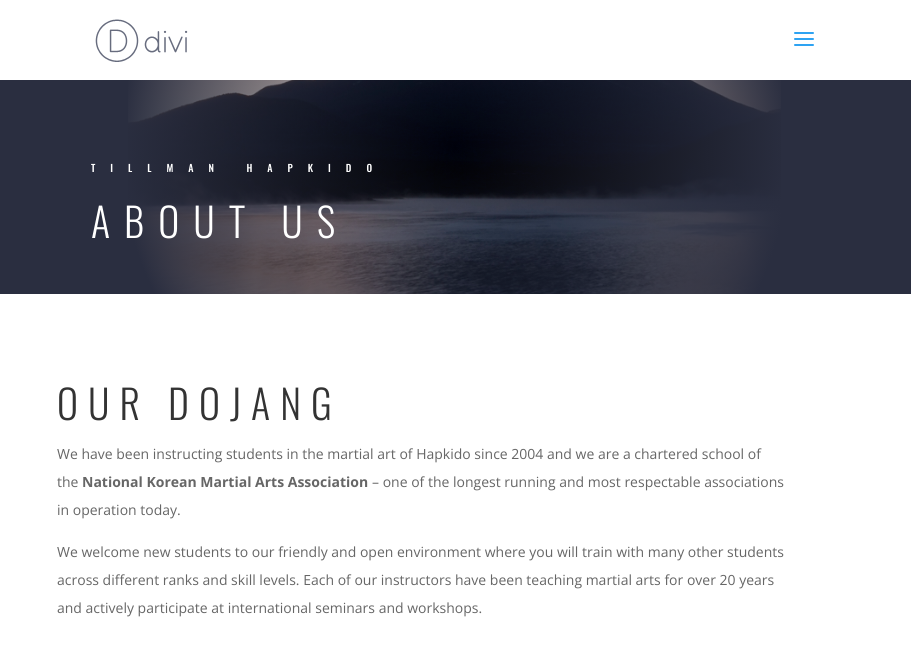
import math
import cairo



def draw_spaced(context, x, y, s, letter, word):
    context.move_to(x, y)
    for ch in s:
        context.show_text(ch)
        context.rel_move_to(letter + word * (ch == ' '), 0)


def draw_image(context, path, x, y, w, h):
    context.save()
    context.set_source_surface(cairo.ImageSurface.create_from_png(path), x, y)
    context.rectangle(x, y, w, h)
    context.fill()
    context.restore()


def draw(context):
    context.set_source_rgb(1, 1, 1)
    context.paint()
    draw_image(context, "images/1.png", 95, 19, 93, 43)
    draw_image(context, "images/2.png", 794, 32, 20, 14)
    context.set_source_rgb(42 / 255, 46 / 255, 64 / 255)
    context.rectangle(0, 80, 911, 214)
    context.fill()
    draw_image(context, "images/3.png", 128, 80, 653, 214)
    context.select_font_face("Oswald Medium")
    context.set_font_size(10)
    context.set_source_rgb(1, 1, 1)
    draw_spaced(context, 91, 172, "TILLMAN HAPKIDO", 15, 0)
    context.select_font_face("Oswald Light")
    context.set_font_size(40)
    draw_spaced(context, 91, 238, "ABOUT US", 14, 0)
    context.set_source_rgb(51 / 255, 51 / 255, 51 / 255)
    draw_spaced(context, 57, 420, "OUR DOJANG", 10, 0)
    context.select_font_face("Open Sans")
    context.set_font_size(14)
    context.set_source_rgb(102 / 255, 102 / 255, 102 / 255)
    context.move_to(57, 459)
    context.show_text("We have been instructing students in the martial art of Hapkido since 2004 and we are a chartered school of")
    context.move_to(57, 487)
    context.show_text("the")
    context.select_font_face("Open Sans", cairo.FontSlant.NORMAL, cairo.FontWeight.BOLD)
    context.move_to(82, 487)
    context.show_text("National Korean Martial Arts Association")
    context.select_font_face("Open Sans")
    context.move_to(372, 487)
    context.show_text("– one of the longest running and most respectable associations")
    context.move_to(57, 515)
    context.show_text("in operation today.")
    context.move_to(57, 557)
    context.show_text("We welcome new students to our friendly and open environment where you will train with many other students")
    context.move_to(57, 585)
    context.show_text("across different ranks and skill levels. Each of our instructors have been teaching martial arts for over 20 years")
    context.move_to(57, 613)
    context.show_text("and actively participate at international seminars and workshops.")


surface = cairo.ImageSurface(cairo.Format.RGB24, 911, 646)
context = cairo.Context(surface)
options = cairo.FontOptions()
options.set_hint_metrics(cairo.HintMetrics.OFF)
options.set_hint_style(cairo.HintStyle.NONE)
context.set_font_options(options)
context.set_miter_limit(4)
draw(context)
surface.write_to_png("out.png")
